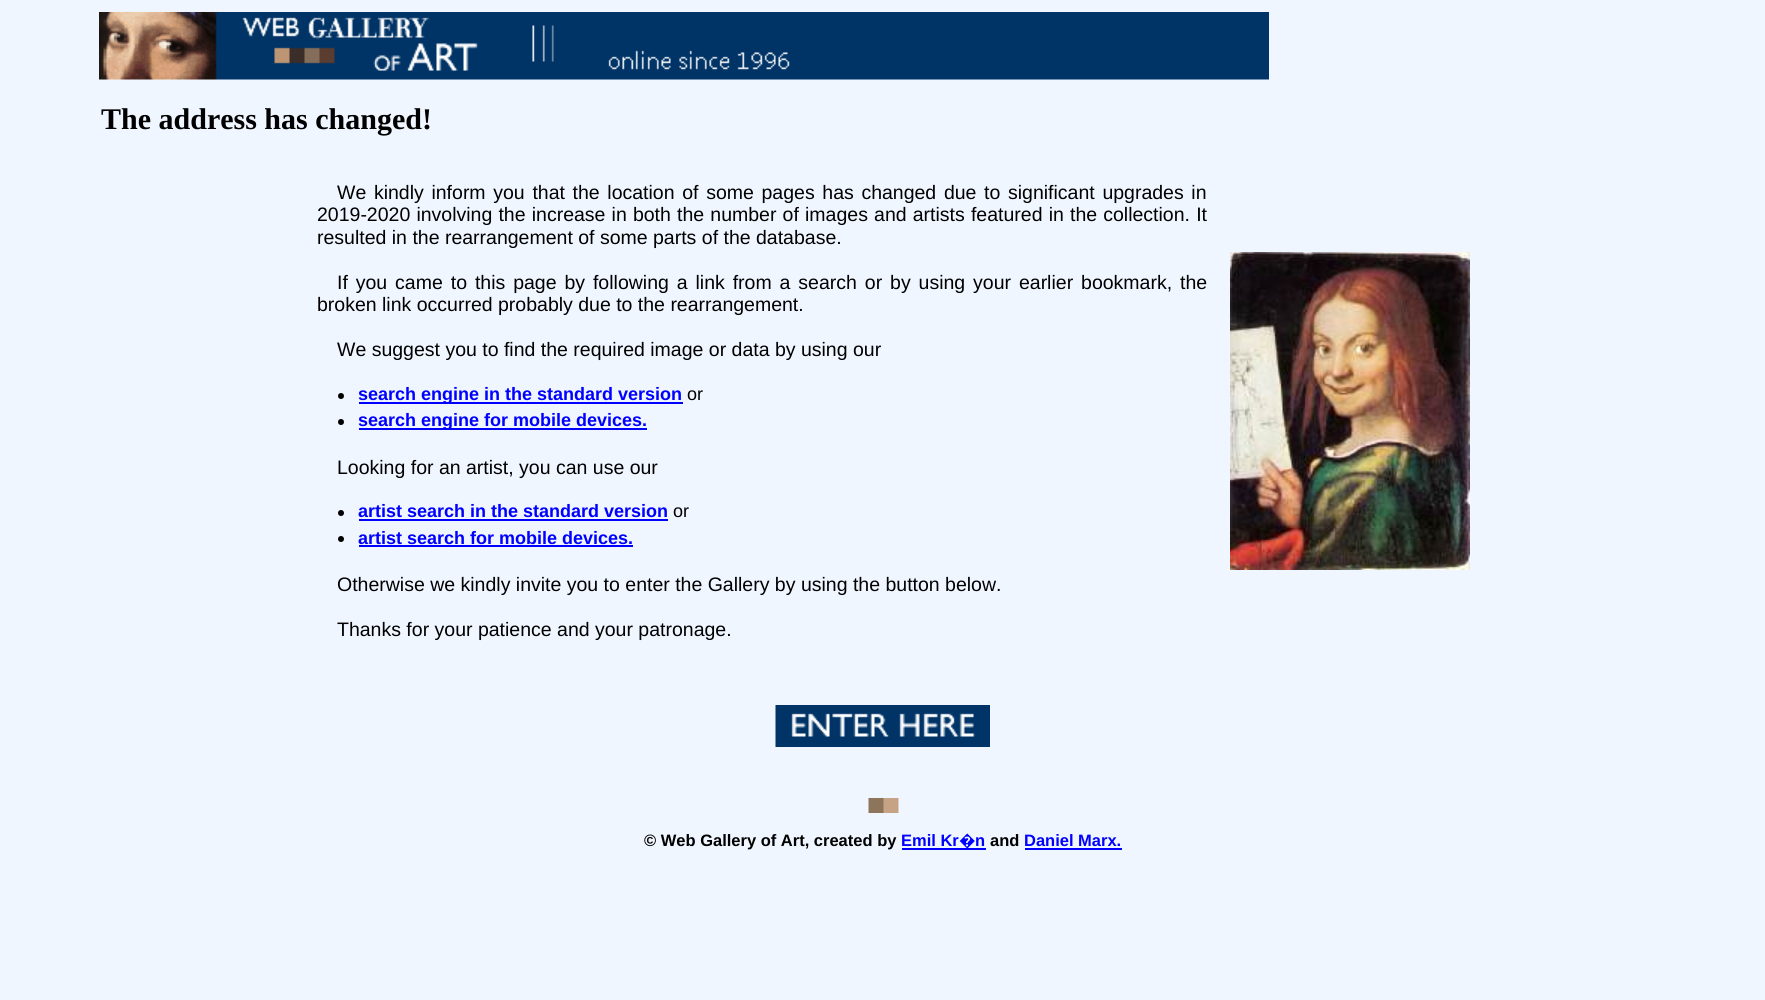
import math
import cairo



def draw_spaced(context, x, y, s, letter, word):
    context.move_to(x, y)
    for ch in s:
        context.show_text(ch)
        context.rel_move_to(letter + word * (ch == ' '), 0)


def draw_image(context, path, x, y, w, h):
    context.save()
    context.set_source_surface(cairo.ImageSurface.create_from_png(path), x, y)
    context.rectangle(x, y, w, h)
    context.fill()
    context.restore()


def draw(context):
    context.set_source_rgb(240 / 255, 246 / 255, 1)
    context.paint()
    draw_image(context, "images/1.png", 99, 12, 1170, 68)
    context.set_source_rgb(0, 0, 0)
    context.arc(341, 396, 3, 0, 2 * math.pi)
    context.fill()
    context.set_source_rgb(0, 0, 1)
    context.rectangle(359, 402, 324, 2)
    context.fill()
    context.set_source_rgb(0, 0, 0)
    context.arc(341, 422, 3, 0, 2 * math.pi)
    context.fill()
    context.set_source_rgb(0, 0, 1)
    context.rectangle(359, 428, 288, 2)
    context.fill()
    context.set_source_rgb(0, 0, 0)
    context.arc(341, 513, 3, 0, 2 * math.pi)
    context.fill()
    context.set_source_rgb(0, 0, 1)
    context.rectangle(359, 519, 309, 2)
    context.fill()
    context.set_source_rgb(0, 0, 0)
    context.arc(341, 539, 3, 0, 2 * math.pi)
    context.fill()
    context.set_source_rgb(0, 0, 1)
    context.rectangle(359, 545, 274, 2)
    context.fill()
    draw_image(context, "images/2.png", 1230, 252, 240, 318)
    draw_image(context, "images/3.png", 775, 705, 215, 42)
    draw_image(context, "images/4.png", 868, 798, 31, 15)
    context.rectangle(902, 848, 84, 2)
    context.fill()
    context.rectangle(1025, 848, 97, 2)
    context.fill()
    context.select_font_face("Liberation Serif", cairo.FontSlant.NORMAL, cairo.FontWeight.BOLD)
    context.set_font_size(30)
    context.set_source_rgb(0, 0, 0)
    context.move_to(101, 129)
    context.show_text("The address has changed!")
    context.select_font_face("Liberation Sans")
    context.set_font_size(19.5)
    draw_spaced(context, 337, 199, "We kindly inform you that the location of some pages has changed due to significant upgrades in", 0, 2.25)
    draw_spaced(context, 317, 221, "2019-2020 involving the increase in both the number of images and artists featured in the collection. It", 0, 0.75)
    context.move_to(317, 244)
    context.show_text("resulted in the rearrangement of some parts of the database.")
    draw_spaced(context, 337, 289, "If you came to this page by following a link from a search or by using your earlier bookmark, the", 0, 2.5)
    context.move_to(317, 311)
    context.show_text("broken link occurred probably due to the rearrangement.")
    context.move_to(337, 356)
    context.show_text("We suggest you to find the required image or data by using our")
    context.select_font_face("Liberation Sans", cairo.FontSlant.NORMAL, cairo.FontWeight.BOLD)
    context.set_font_size(18)
    context.set_source_rgb(0, 0, 1)
    context.move_to(358, 400)
    context.show_text("search engine in the standard version")
    context.select_font_face("Liberation Sans")
    context.set_source_rgb(0, 0, 0)
    context.move_to(687, 400)
    context.show_text("or")
    context.select_font_face("Liberation Sans", cairo.FontSlant.NORMAL, cairo.FontWeight.BOLD)
    context.set_source_rgb(0, 0, 1)
    context.move_to(358, 426)
    context.show_text("search engine for mobile devices.")
    context.select_font_face("Liberation Sans")
    context.set_font_size(19.5)
    context.set_source_rgb(0, 0, 0)
    context.move_to(337, 474)
    context.show_text("Looking for an artist, you can use our")
    context.select_font_face("Liberation Sans", cairo.FontSlant.NORMAL, cairo.FontWeight.BOLD)
    context.set_font_size(18)
    context.set_source_rgb(0, 0, 1)
    context.move_to(358, 517)
    context.show_text("artist search in the standard version")
    context.select_font_face("Liberation Sans")
    context.set_source_rgb(0, 0, 0)
    context.move_to(673, 517)
    context.show_text("or")
    context.select_font_face("Liberation Sans", cairo.FontSlant.NORMAL, cairo.FontWeight.BOLD)
    context.set_source_rgb(0, 0, 1)
    context.move_to(358, 544)
    context.show_text("artist search for mobile devices.")
    context.select_font_face("Liberation Sans")
    context.set_font_size(19.5)
    context.set_source_rgb(0, 0, 0)
    context.move_to(337, 591)
    context.show_text("Otherwise we kindly invite you to enter the Gallery by using the button below.")
    context.move_to(337, 636)
    context.show_text("Thanks for your patience and your patronage.")
    context.select_font_face("Liberation Sans", cairo.FontSlant.NORMAL, cairo.FontWeight.BOLD)
    context.set_font_size(16.5)
    context.move_to(644, 846)
    context.show_text("© Web Gallery of Art, created by")
    context.set_source_rgb(0, 0, 1)
    context.move_to(901, 846)
    context.show_text("Emil Kr")
    context.select_font_face("Noto Sans", cairo.FontSlant.NORMAL, cairo.FontWeight.BOLD)
    context.move_to(959, 846)
    context.show_text("�")
    context.select_font_face("Liberation Sans", cairo.FontSlant.NORMAL, cairo.FontWeight.BOLD)
    context.move_to(975, 846)
    context.show_text("n")
    context.set_source_rgb(0, 0, 0)
    context.move_to(990, 846)
    context.show_text("and")
    context.set_source_rgb(0, 0, 1)
    context.move_to(1024, 846)
    context.show_text("Daniel Marx.")


surface = cairo.ImageSurface(cairo.Format.RGB24, 1765, 1000)
context = cairo.Context(surface)
options = cairo.FontOptions()
options.set_hint_metrics(cairo.HintMetrics.OFF)
options.set_hint_style(cairo.HintStyle.NONE)
context.set_font_options(options)
context.set_miter_limit(4)
draw(context)
surface.write_to_png("out.png")
